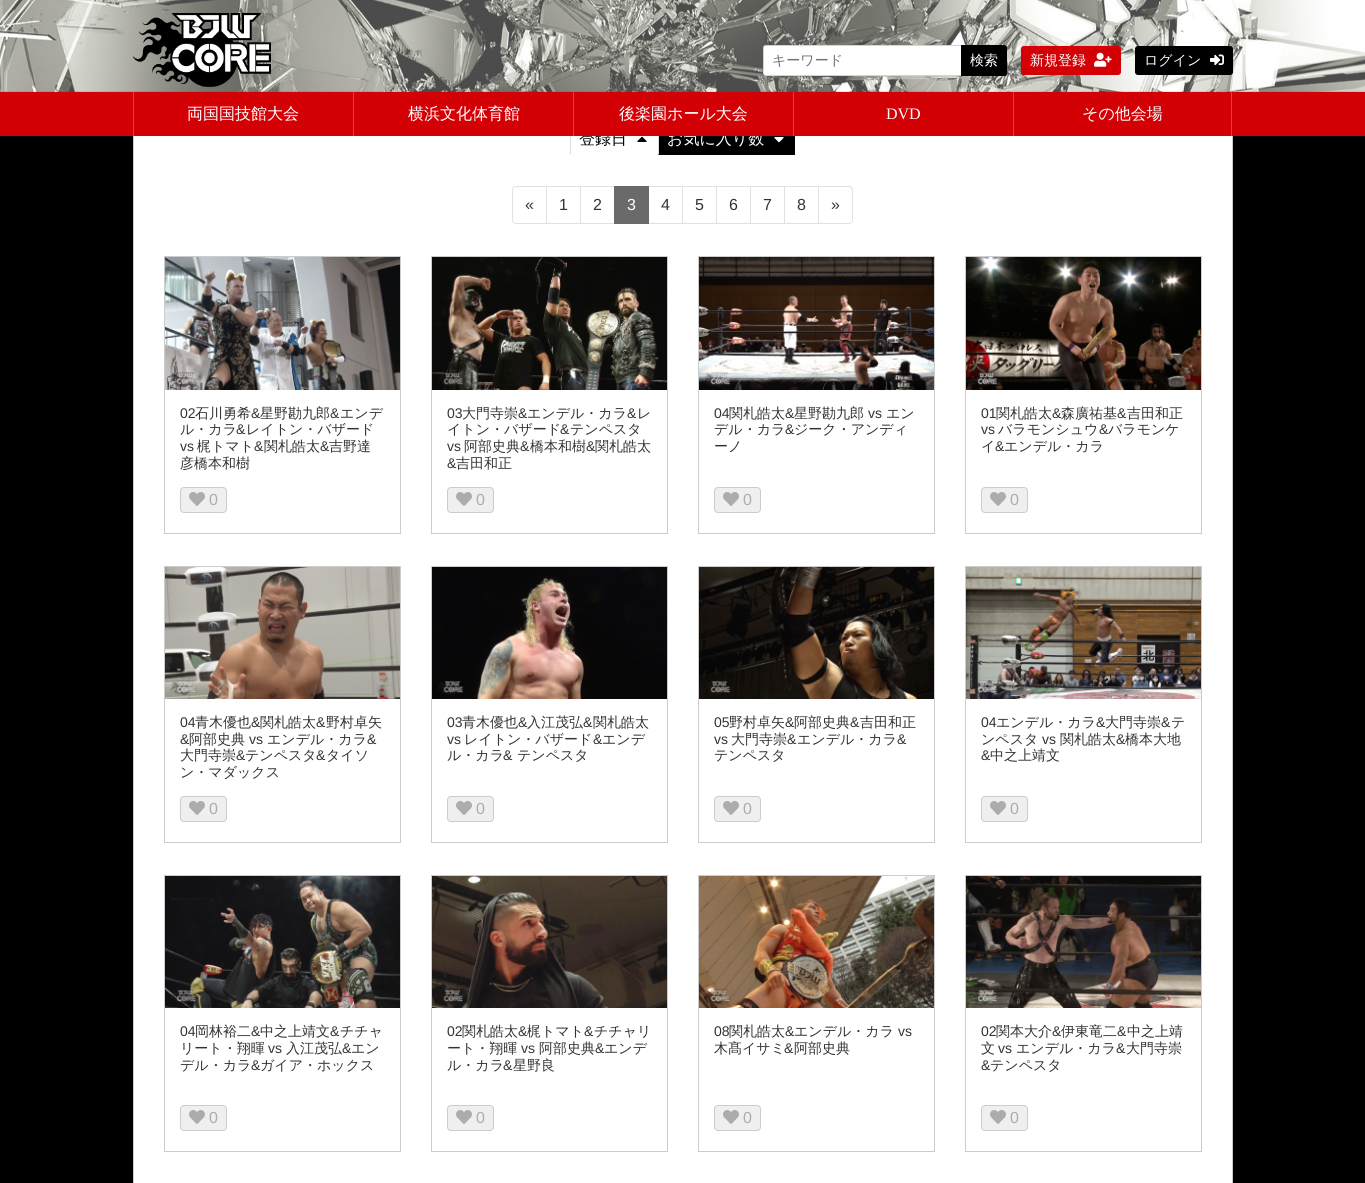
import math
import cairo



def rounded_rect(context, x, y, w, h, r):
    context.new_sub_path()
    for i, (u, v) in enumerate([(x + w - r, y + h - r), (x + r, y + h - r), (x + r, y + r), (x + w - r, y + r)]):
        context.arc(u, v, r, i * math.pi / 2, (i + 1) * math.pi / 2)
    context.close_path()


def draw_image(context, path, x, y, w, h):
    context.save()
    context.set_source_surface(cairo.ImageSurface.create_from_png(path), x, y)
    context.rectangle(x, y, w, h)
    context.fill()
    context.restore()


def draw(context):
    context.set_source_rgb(0, 0, 0)
    context.paint()
    context.set_source_rgb(1, 1, 1)
    context.rectangle(134, 136, 1098, 1047)
    context.fill()
    context.rectangle(133.5, 31.5, 1099, 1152)
    context.set_source_rgb(204 / 255, 204 / 255, 204 / 255)
    context.set_line_width(1)
    context.stroke()
    context.set_source_rgb(221 / 255, 221 / 255, 221 / 255)
    context.new_path()
    context.move_to(570, 155)
    context.line_to(570, 123)
    context.line_to(571, 124)
    context.line_to(571, 154)
    context.close_path()
    context.fill()
    draw_image(context, "images/5.png", 637, 136, 10, 6)
    context.set_source_rgb(0, 0, 0)
    context.rectangle(658, 136, 137, 19)
    context.fill()
    context.set_source_rgb(221 / 255, 221 / 255, 221 / 255)
    context.new_path()
    context.move_to(658, 155)
    context.line_to(658, 123)
    context.line_to(659, 124)
    context.line_to(659, 154)
    context.close_path()
    context.fill()
    draw_image(context, "images/6.png", 774, 137, 10, 6)
    context.new_path()
    context.move_to(516, 186.5)
    context.line_to(546.5, 186.5)
    context.line_to(546.5, 223.5)
    context.line_to(516, 223.5)
    context.curve_to(514, 223.5, 512.5, 222, 512.5, 220)
    context.line_to(512.5, 190)
    context.curve_to(512.5, 188, 514, 186.5, 516, 186.5)
    context.close_path()
    context.set_source_rgb(222 / 255, 226 / 255, 230 / 255)
    context.stroke()
    context.rectangle(546.5, 186.5, 34, 37)
    context.stroke()
    context.rectangle(580.5, 186.5, 34, 37)
    context.stroke()
    context.rectangle(648.5, 186.5, 34, 37)
    context.stroke()
    context.set_source_rgb(106 / 255, 106 / 255, 106 / 255)
    context.rectangle(614, 186, 35, 38)
    context.fill()
    context.rectangle(682.5, 186.5, 34, 37)
    context.set_source_rgb(222 / 255, 226 / 255, 230 / 255)
    context.stroke()
    context.rectangle(716.5, 186.5, 34, 37)
    context.stroke()
    context.rectangle(750.5, 186.5, 34, 37)
    context.stroke()
    context.rectangle(784.5, 186.5, 34, 37)
    context.stroke()
    context.set_source_rgb(1, 1, 1)
    context.new_path()
    context.move_to(818.5, 186.5)
    context.line_to(849, 186.5)
    context.curve_to(851, 186.5, 852.5, 188, 852.5, 190)
    context.line_to(852.5, 220)
    context.curve_to(852.5, 222, 851, 223.5, 849, 223.5)
    context.line_to(818.5, 223.5)
    context.close_path()
    context.fill_preserve()
    context.set_source_rgb(222 / 255, 226 / 255, 230 / 255)
    context.stroke()
    context.rectangle(164.5, 256.5, 236, 277)
    context.set_source_rgb(204 / 255, 204 / 255, 204 / 255)
    context.stroke()
    draw_image(context, "images/7.png", 165, 257, 235, 133)
    context.set_source_rgb(239 / 255, 239 / 255, 239 / 255)
    rounded_rect(context, 180.5, 487.5, 46, 25, 3.5)
    context.fill_preserve()
    context.set_source_rgb(204 / 255, 204 / 255, 204 / 255)
    context.stroke()
    draw_image(context, "images/8.png", 189, 492, 16, 14)
    context.rectangle(431.5, 256.5, 236, 277)
    context.stroke()
    draw_image(context, "images/9.png", 432, 257, 235, 133)
    context.set_source_rgb(239 / 255, 239 / 255, 239 / 255)
    rounded_rect(context, 447.5, 487.5, 46, 25, 3.5)
    context.fill_preserve()
    context.set_source_rgb(204 / 255, 204 / 255, 204 / 255)
    context.stroke()
    draw_image(context, "images/8.png", 456, 492, 16, 14)
    context.rectangle(698.5, 256.5, 236, 277)
    context.stroke()
    draw_image(context, "images/10.png", 699, 257, 235, 133)
    context.set_source_rgb(239 / 255, 239 / 255, 239 / 255)
    rounded_rect(context, 714.5, 487.5, 46, 25, 3.5)
    context.fill_preserve()
    context.set_source_rgb(204 / 255, 204 / 255, 204 / 255)
    context.stroke()
    draw_image(context, "images/8.png", 723, 492, 16, 14)
    context.rectangle(965.5, 256.5, 236, 277)
    context.stroke()
    draw_image(context, "images/11.png", 966, 257, 235, 133)
    context.set_source_rgb(239 / 255, 239 / 255, 239 / 255)
    rounded_rect(context, 981.5, 487.5, 46, 25, 3.5)
    context.fill_preserve()
    context.set_source_rgb(204 / 255, 204 / 255, 204 / 255)
    context.stroke()
    draw_image(context, "images/8.png", 990, 492, 16, 14)
    context.rectangle(164.5, 566.5, 236, 276)
    context.stroke()
    draw_image(context, "images/12.png", 165, 567, 235, 132)
    context.set_source_rgb(239 / 255, 239 / 255, 239 / 255)
    rounded_rect(context, 180.5, 796.5, 46, 25, 3.5)
    context.fill_preserve()
    context.set_source_rgb(204 / 255, 204 / 255, 204 / 255)
    context.stroke()
    draw_image(context, "images/8.png", 189, 801, 16, 14)
    context.rectangle(431.5, 566.5, 236, 276)
    context.stroke()
    draw_image(context, "images/13.png", 432, 567, 235, 132)
    context.set_source_rgb(239 / 255, 239 / 255, 239 / 255)
    rounded_rect(context, 447.5, 796.5, 46, 25, 3.5)
    context.fill_preserve()
    context.set_source_rgb(204 / 255, 204 / 255, 204 / 255)
    context.stroke()
    draw_image(context, "images/8.png", 456, 801, 16, 14)
    context.rectangle(698.5, 566.5, 236, 276)
    context.stroke()
    draw_image(context, "images/14.png", 699, 567, 235, 132)
    context.set_source_rgb(239 / 255, 239 / 255, 239 / 255)
    rounded_rect(context, 714.5, 796.5, 46, 25, 3.5)
    context.fill_preserve()
    context.set_source_rgb(204 / 255, 204 / 255, 204 / 255)
    context.stroke()
    draw_image(context, "images/8.png", 723, 801, 16, 14)
    context.rectangle(965.5, 566.5, 236, 276)
    context.stroke()
    draw_image(context, "images/15.png", 966, 567, 235, 132)
    context.set_source_rgb(239 / 255, 239 / 255, 239 / 255)
    rounded_rect(context, 981.5, 796.5, 46, 25, 3.5)
    context.fill_preserve()
    context.set_source_rgb(204 / 255, 204 / 255, 204 / 255)
    context.stroke()
    draw_image(context, "images/8.png", 990, 801, 16, 14)
    context.rectangle(164.5, 875.5, 236, 276)
    context.stroke()
    draw_image(context, "images/16.png", 165, 876, 235, 132)
    context.set_source_rgb(239 / 255, 239 / 255, 239 / 255)
    rounded_rect(context, 180.5, 1105.5, 46, 25, 3.5)
    context.fill_preserve()
    context.set_source_rgb(204 / 255, 204 / 255, 204 / 255)
    context.stroke()
    draw_image(context, "images/8.png", 189, 1110, 16, 14)
    context.rectangle(431.5, 875.5, 236, 276)
    context.stroke()
    draw_image(context, "images/17.png", 432, 876, 235, 132)
    context.set_source_rgb(239 / 255, 239 / 255, 239 / 255)
    rounded_rect(context, 447.5, 1105.5, 46, 25, 3.5)
    context.fill_preserve()
    context.set_source_rgb(204 / 255, 204 / 255, 204 / 255)
    context.stroke()
    draw_image(context, "images/8.png", 456, 1110, 16, 14)
    context.rectangle(698.5, 875.5, 236, 276)
    context.stroke()
    draw_image(context, "images/18.png", 699, 876, 235, 132)
    context.set_source_rgb(239 / 255, 239 / 255, 239 / 255)
    rounded_rect(context, 714.5, 1105.5, 46, 25, 3.5)
    context.fill_preserve()
    context.set_source_rgb(204 / 255, 204 / 255, 204 / 255)
    context.stroke()
    draw_image(context, "images/8.png", 723, 1110, 16, 14)
    context.rectangle(965.5, 875.5, 236, 276)
    context.stroke()
    draw_image(context, "images/19.png", 966, 876, 235, 132)
    context.set_source_rgb(239 / 255, 239 / 255, 239 / 255)
    rounded_rect(context, 981.5, 1105.5, 46, 25, 3.5)
    context.fill_preserve()
    context.set_source_rgb(204 / 255, 204 / 255, 204 / 255)
    context.stroke()
    draw_image(context, "images/8.png", 990, 1110, 16, 14)
    context.select_font_face("WenQuanYi Zen Hei Medium")
    context.set_font_size(16)
    context.set_source_rgb(0, 0, 0)
    context.move_to(579, 144)
    context.show_text("登録日")
    context.set_source_rgb(1, 1, 1)
    context.move_to(667, 144)
    context.show_text("お気に入り数")
    context.set_source_rgb(211 / 255, 1 / 255, 5 / 255)
    context.rectangle(0, 91, 1365, 45)
    context.fill()
    context.set_source_rgb(1, 1, 1)
    context.move_to(1082, 119)
    context.show_text("その他会場")
    context.set_source_rgb(235 / 255, 56 / 255, 59 / 255)
    context.rectangle(1013, 92, 1, 44)
    context.fill()
    context.rectangle(1231, 92, 1, 44)
    context.fill()
    context.select_font_face("Liberation Serif")
    context.set_source_rgb(1, 1, 1)
    context.move_to(886, 119)
    context.show_text("DVD")
    context.set_source_rgb(235 / 255, 56 / 255, 59 / 255)
    context.rectangle(793, 92, 1, 44)
    context.fill()
    context.select_font_face("WenQuanYi Zen Hei Medium")
    context.set_source_rgb(1, 1, 1)
    context.move_to(619, 119)
    context.show_text("後楽園ホール大会")
    context.set_source_rgb(235 / 255, 56 / 255, 59 / 255)
    context.rectangle(573, 92, 1, 44)
    context.fill()
    context.set_source_rgb(1, 1, 1)
    context.move_to(408, 119)
    context.show_text("横浜文化体育館")
    context.set_source_rgb(235 / 255, 56 / 255, 59 / 255)
    context.rectangle(353, 92, 1, 44)
    context.fill()
    context.set_source_rgb(1, 1, 1)
    context.move_to(187, 119)
    context.show_text("両国国技館大会")
    context.set_source_rgb(235 / 255, 56 / 255, 59 / 255)
    context.rectangle(133, 92, 1, 44)
    context.fill()
    draw_image(context, "images/1.png", 0, 0, 1365, 92)
    context.set_source_rgb(1, 1, 1)
    context.new_path()
    context.move_to(766, 45.5)
    context.line_to(961.5, 45.5)
    context.line_to(961.5, 75.5)
    context.line_to(766, 75.5)
    context.curve_to(764.5, 75.5, 763.5, 74.5, 763.5, 73)
    context.line_to(763.5, 48)
    context.curve_to(763.5, 46.5, 764.5, 45.5, 766, 45.5)
    context.close_path()
    context.fill_preserve()
    context.set_source_rgb(206 / 255, 212 / 255, 218 / 255)
    context.stroke()
    context.set_source_rgb(0, 0, 0)
    context.new_path()
    context.move_to(961.5, 45.5)
    context.line_to(1004, 45.5)
    context.curve_to(1005.5, 45.5, 1006.5, 46.5, 1006.5, 48)
    context.line_to(1006.5, 73)
    context.curve_to(1006.5, 74.5, 1005.5, 75.5, 1004, 75.5)
    context.line_to(961.5, 75.5)
    context.close_path()
    context.fill_preserve()
    context.stroke()
    context.set_font_size(14)
    context.set_source_rgb(1, 1, 1)
    context.move_to(970, 65)
    context.show_text("検索")
    context.set_source_rgb(108 / 255, 117 / 255, 125 / 255)
    context.move_to(772, 65)
    context.show_text("キーワード")
    draw_image(context, "images/2.png", 132, 13, 139, 74)
    context.set_source_rgb(0, 0, 0)
    rounded_rect(context, 1135.5, 46.5, 97, 28, 2.5)
    context.fill_preserve()
    context.stroke()
    draw_image(context, "images/4.png", 1210, 54, 14, 12)
    context.set_source_rgb(1, 1, 1)
    context.move_to(1144, 65)
    context.show_text("ログイン")
    context.set_source_rgb(211 / 255, 1 / 255, 5 / 255)
    rounded_rect(context, 1021.5, 46.5, 99, 28, 2.5)
    context.fill_preserve()
    context.stroke()
    draw_image(context, "images/3.png", 1094, 52, 18, 15)
    context.set_source_rgb(1, 1, 1)
    context.move_to(1030, 65)
    context.show_text("新規登録")
    context.select_font_face("Liberation Sans")
    context.set_font_size(16)
    context.set_source_rgb(51 / 255, 51 / 255, 51 / 255)
    context.move_to(525, 210)
    context.show_text("«")
    context.move_to(559, 210)
    context.show_text("1")
    context.move_to(593, 210)
    context.show_text("2")
    context.set_source_rgb(1, 1, 1)
    context.move_to(627, 210)
    context.show_text("3")
    context.set_source_rgb(51 / 255, 51 / 255, 51 / 255)
    context.move_to(661, 210)
    context.show_text("4")
    context.move_to(695, 210)
    context.show_text("5")
    context.move_to(729, 210)
    context.show_text("6")
    context.move_to(763, 210)
    context.show_text("7")
    context.move_to(797, 210)
    context.show_text("8")
    context.move_to(831, 210)
    context.show_text("»")
    context.set_font_size(14)
    context.move_to(180, 418)
    context.show_text("02")
    context.select_font_face("WenQuanYi Zen Hei Medium")
    context.move_to(195, 418)
    context.show_text("石川勇希")
    context.select_font_face("Liberation Sans")
    context.move_to(251, 418)
    context.show_text("&")
    context.select_font_face("WenQuanYi Zen Hei Medium")
    context.move_to(260, 418)
    context.show_text("星野勘九郎")
    context.select_font_face("Liberation Sans")
    context.move_to(330, 418)
    context.show_text("&")
    context.select_font_face("WenQuanYi Zen Hei Medium")
    context.move_to(340, 418)
    context.show_text("エンデ")
    context.move_to(180, 434)
    context.show_text("ル・カラ")
    context.select_font_face("Liberation Sans")
    context.move_to(236, 434)
    context.show_text("&")
    context.select_font_face("WenQuanYi Zen Hei Medium")
    context.move_to(246, 434)
    context.show_text("レイトン・バザード")
    context.select_font_face("Liberation Sans")
    context.move_to(180, 451)
    context.show_text("vs")
    context.select_font_face("WenQuanYi Zen Hei Medium")
    context.move_to(197, 451)
    context.show_text("梶トマト")
    context.select_font_face("Liberation Sans")
    context.move_to(254, 451)
    context.show_text("&")
    context.select_font_face("WenQuanYi Zen Hei Medium")
    context.move_to(264, 451)
    context.show_text("関札皓太")
    context.select_font_face("Liberation Sans")
    context.move_to(320, 451)
    context.show_text("&")
    context.select_font_face("WenQuanYi Zen Hei Medium")
    context.move_to(329, 451)
    context.show_text("吉野達")
    context.move_to(180, 468)
    context.show_text("彦橋本和樹")
    context.select_font_face("Liberation Sans")
    context.set_font_size(16)
    context.set_source_rgb(172 / 255, 172 / 255, 172 / 255)
    context.move_to(209, 505)
    context.show_text("0")
    context.set_font_size(14)
    context.set_source_rgb(51 / 255, 51 / 255, 51 / 255)
    context.move_to(447, 418)
    context.show_text("03")
    context.select_font_face("WenQuanYi Zen Hei Medium")
    context.move_to(462, 418)
    context.show_text("大門寺崇")
    context.select_font_face("Liberation Sans")
    context.move_to(518, 418)
    context.show_text("&")
    context.select_font_face("WenQuanYi Zen Hei Medium")
    context.move_to(527, 418)
    context.show_text("エンデル・カラ")
    context.select_font_face("Liberation Sans")
    context.move_to(627, 418)
    context.show_text("&")
    context.select_font_face("WenQuanYi Zen Hei Medium")
    context.move_to(637, 418)
    context.show_text("レ")
    context.move_to(447, 434)
    context.show_text("イトン・バザード")
    context.select_font_face("Liberation Sans")
    context.move_to(560, 434)
    context.show_text("&")
    context.select_font_face("WenQuanYi Zen Hei Medium")
    context.move_to(570, 434)
    context.show_text("テンペスタ")
    context.select_font_face("Liberation Sans")
    context.move_to(447, 451)
    context.show_text("vs")
    context.select_font_face("WenQuanYi Zen Hei Medium")
    context.move_to(464, 451)
    context.show_text("阿部史典")
    context.select_font_face("Liberation Sans")
    context.move_to(520, 451)
    context.show_text("&")
    context.select_font_face("WenQuanYi Zen Hei Medium")
    context.move_to(530, 451)
    context.show_text("橋本和樹")
    context.select_font_face("Liberation Sans")
    context.move_to(586, 451)
    context.show_text("&")
    context.select_font_face("WenQuanYi Zen Hei Medium")
    context.move_to(595, 451)
    context.show_text("関札皓太")
    context.select_font_face("Liberation Sans")
    context.move_to(447, 468)
    context.show_text("&")
    context.select_font_face("WenQuanYi Zen Hei Medium")
    context.move_to(456, 468)
    context.show_text("吉田和正")
    context.select_font_face("Liberation Sans")
    context.set_font_size(16)
    context.set_source_rgb(172 / 255, 172 / 255, 172 / 255)
    context.move_to(476, 505)
    context.show_text("0")
    context.set_font_size(14)
    context.set_source_rgb(51 / 255, 51 / 255, 51 / 255)
    context.move_to(714, 418)
    context.show_text("04")
    context.select_font_face("WenQuanYi Zen Hei Medium")
    context.move_to(729, 418)
    context.show_text("関札皓太")
    context.select_font_face("Liberation Sans")
    context.move_to(785, 418)
    context.show_text("&")
    context.select_font_face("WenQuanYi Zen Hei Medium")
    context.move_to(794, 418)
    context.show_text("星野勘九郎")
    context.select_font_face("Liberation Sans")
    context.move_to(868, 418)
    context.show_text("vs")
    context.select_font_face("WenQuanYi Zen Hei Medium")
    context.move_to(886, 418)
    context.show_text("エン")
    context.move_to(714, 434)
    context.show_text("デル・カラ")
    context.select_font_face("Liberation Sans")
    context.move_to(785, 434)
    context.show_text("&")
    context.select_font_face("WenQuanYi Zen Hei Medium")
    context.move_to(794, 434)
    context.show_text("ジーク・アンディ")
    context.move_to(714, 451)
    context.show_text("ーノ")
    context.select_font_face("Liberation Sans")
    context.set_font_size(16)
    context.set_source_rgb(172 / 255, 172 / 255, 172 / 255)
    context.move_to(743, 505)
    context.show_text("0")
    context.set_font_size(14)
    context.set_source_rgb(51 / 255, 51 / 255, 51 / 255)
    context.move_to(981, 418)
    context.show_text("01")
    context.select_font_face("WenQuanYi Zen Hei Medium")
    context.move_to(996, 418)
    context.show_text("関札皓太")
    context.select_font_face("Liberation Sans")
    context.move_to(1052, 418)
    context.show_text("&")
    context.select_font_face("WenQuanYi Zen Hei Medium")
    context.move_to(1061, 418)
    context.show_text("森廣祐基")
    context.select_font_face("Liberation Sans")
    context.move_to(1117, 418)
    context.show_text("&")
    context.select_font_face("WenQuanYi Zen Hei Medium")
    context.move_to(1127, 418)
    context.show_text("吉田和正")
    context.select_font_face("Liberation Sans")
    context.move_to(981, 434)
    context.show_text("vs")
    context.select_font_face("WenQuanYi Zen Hei Medium")
    context.move_to(998, 434)
    context.show_text("バラモンシュウ")
    context.select_font_face("Liberation Sans")
    context.move_to(1099, 434)
    context.show_text("&")
    context.select_font_face("WenQuanYi Zen Hei Medium")
    context.move_to(1108, 434)
    context.show_text("バラモンケ")
    context.move_to(981, 451)
    context.show_text("イ")
    context.select_font_face("Liberation Sans")
    context.move_to(995, 451)
    context.show_text("&")
    context.select_font_face("WenQuanYi Zen Hei Medium")
    context.move_to(1004, 451)
    context.show_text("エンデル・カラ")
    context.select_font_face("Liberation Sans")
    context.set_font_size(16)
    context.set_source_rgb(172 / 255, 172 / 255, 172 / 255)
    context.move_to(1010, 505)
    context.show_text("0")
    context.set_font_size(14)
    context.set_source_rgb(51 / 255, 51 / 255, 51 / 255)
    context.move_to(180, 727)
    context.show_text("04")
    context.select_font_face("WenQuanYi Zen Hei Medium")
    context.move_to(195, 727)
    context.show_text("青木優也")
    context.select_font_face("Liberation Sans")
    context.move_to(251, 727)
    context.show_text("&")
    context.select_font_face("WenQuanYi Zen Hei Medium")
    context.move_to(260, 727)
    context.show_text("関札皓太")
    context.select_font_face("Liberation Sans")
    context.move_to(316, 727)
    context.show_text("&")
    context.select_font_face("WenQuanYi Zen Hei Medium")
    context.move_to(326, 727)
    context.show_text("野村卓矢")
    context.select_font_face("Liberation Sans")
    context.move_to(180, 744)
    context.show_text("&")
    context.select_font_face("WenQuanYi Zen Hei Medium")
    context.move_to(189, 744)
    context.show_text("阿部史典")
    context.select_font_face("Liberation Sans")
    context.move_to(249, 744)
    context.show_text("vs")
    context.select_font_face("WenQuanYi Zen Hei Medium")
    context.move_to(267, 744)
    context.show_text("エンデル・カラ")
    context.select_font_face("Liberation Sans")
    context.move_to(367, 744)
    context.show_text("&")
    context.select_font_face("WenQuanYi Zen Hei Medium")
    context.move_to(180, 760)
    context.show_text("大門寺崇")
    context.select_font_face("Liberation Sans")
    context.move_to(236, 760)
    context.show_text("&")
    context.select_font_face("WenQuanYi Zen Hei Medium")
    context.move_to(245, 760)
    context.show_text("テンペスタ")
    context.select_font_face("Liberation Sans")
    context.move_to(316, 760)
    context.show_text("&")
    context.select_font_face("WenQuanYi Zen Hei Medium")
    context.move_to(326, 760)
    context.show_text("タイソ")
    context.move_to(180, 777)
    context.show_text("ン・マダックス")
    context.select_font_face("Liberation Sans")
    context.set_font_size(16)
    context.set_source_rgb(172 / 255, 172 / 255, 172 / 255)
    context.move_to(209, 814)
    context.show_text("0")
    context.set_font_size(14)
    context.set_source_rgb(51 / 255, 51 / 255, 51 / 255)
    context.move_to(447, 727)
    context.show_text("03")
    context.select_font_face("WenQuanYi Zen Hei Medium")
    context.move_to(462, 727)
    context.show_text("青木優也")
    context.select_font_face("Liberation Sans")
    context.move_to(518, 727)
    context.show_text("&")
    context.select_font_face("WenQuanYi Zen Hei Medium")
    context.move_to(527, 727)
    context.show_text("入江茂弘")
    context.select_font_face("Liberation Sans")
    context.move_to(583, 727)
    context.show_text("&")
    context.select_font_face("WenQuanYi Zen Hei Medium")
    context.move_to(593, 727)
    context.show_text("関札皓太")
    context.select_font_face("Liberation Sans")
    context.move_to(447, 744)
    context.show_text("vs")
    context.select_font_face("WenQuanYi Zen Hei Medium")
    context.move_to(464, 744)
    context.show_text("レイトン・バザード")
    context.select_font_face("Liberation Sans")
    context.move_to(593, 744)
    context.show_text("&")
    context.select_font_face("WenQuanYi Zen Hei Medium")
    context.move_to(602, 744)
    context.show_text("エンデ")
    context.move_to(447, 760)
    context.show_text("ル・カラ")
    context.select_font_face("Liberation Sans")
    context.move_to(503, 760)
    context.show_text("&")
    context.select_font_face("WenQuanYi Zen Hei Medium")
    context.move_to(517, 760)
    context.show_text("テンペスタ")
    context.select_font_face("Liberation Sans")
    context.set_font_size(16)
    context.set_source_rgb(172 / 255, 172 / 255, 172 / 255)
    context.move_to(476, 814)
    context.show_text("0")
    context.set_font_size(14)
    context.set_source_rgb(51 / 255, 51 / 255, 51 / 255)
    context.move_to(714, 727)
    context.show_text("05")
    context.select_font_face("WenQuanYi Zen Hei Medium")
    context.move_to(729, 727)
    context.show_text("野村卓矢")
    context.select_font_face("Liberation Sans")
    context.move_to(785, 727)
    context.show_text("&")
    context.select_font_face("WenQuanYi Zen Hei Medium")
    context.move_to(794, 727)
    context.show_text("阿部史典")
    context.select_font_face("Liberation Sans")
    context.move_to(850, 727)
    context.show_text("&")
    context.select_font_face("WenQuanYi Zen Hei Medium")
    context.move_to(860, 727)
    context.show_text("吉田和正")
    context.select_font_face("Liberation Sans")
    context.move_to(714, 744)
    context.show_text("vs")
    context.select_font_face("WenQuanYi Zen Hei Medium")
    context.move_to(731, 744)
    context.show_text("大門寺崇")
    context.select_font_face("Liberation Sans")
    context.move_to(787, 744)
    context.show_text("&")
    context.select_font_face("WenQuanYi Zen Hei Medium")
    context.move_to(797, 744)
    context.show_text("エンデル・カラ")
    context.select_font_face("Liberation Sans")
    context.move_to(897, 744)
    context.show_text("&")
    context.select_font_face("WenQuanYi Zen Hei Medium")
    context.move_to(714, 760)
    context.show_text("テンペスタ")
    context.select_font_face("Liberation Sans")
    context.set_font_size(16)
    context.set_source_rgb(172 / 255, 172 / 255, 172 / 255)
    context.move_to(743, 814)
    context.show_text("0")
    context.set_font_size(14)
    context.set_source_rgb(51 / 255, 51 / 255, 51 / 255)
    context.move_to(981, 727)
    context.show_text("04")
    context.select_font_face("WenQuanYi Zen Hei Medium")
    context.move_to(996, 727)
    context.show_text("エンデル・カラ")
    context.select_font_face("Liberation Sans")
    context.move_to(1096, 727)
    context.show_text("&")
    context.select_font_face("WenQuanYi Zen Hei Medium")
    context.move_to(1105, 727)
    context.show_text("大門寺崇")
    context.select_font_face("Liberation Sans")
    context.move_to(1161, 727)
    context.show_text("&")
    context.select_font_face("WenQuanYi Zen Hei Medium")
    context.move_to(1171, 727)
    context.show_text("テ")
    context.move_to(981, 744)
    context.show_text("ンペスタ")
    context.select_font_face("Liberation Sans")
    context.move_to(1042, 744)
    context.show_text("vs")
    context.select_font_face("WenQuanYi Zen Hei Medium")
    context.move_to(1060, 744)
    context.show_text("関札皓太")
    context.select_font_face("Liberation Sans")
    context.move_to(1116, 744)
    context.show_text("&")
    context.select_font_face("WenQuanYi Zen Hei Medium")
    context.move_to(1125, 744)
    context.show_text("橋本大地")
    context.select_font_face("Liberation Sans")
    context.move_to(981, 760)
    context.show_text("&")
    context.select_font_face("WenQuanYi Zen Hei Medium")
    context.move_to(990, 760)
    context.show_text("中之上靖文")
    context.select_font_face("Liberation Sans")
    context.set_font_size(16)
    context.set_source_rgb(172 / 255, 172 / 255, 172 / 255)
    context.move_to(1010, 814)
    context.show_text("0")
    context.set_font_size(14)
    context.set_source_rgb(51 / 255, 51 / 255, 51 / 255)
    context.move_to(180, 1036)
    context.show_text("04")
    context.select_font_face("WenQuanYi Zen Hei Medium")
    context.move_to(195, 1036)
    context.show_text("岡林裕二")
    context.select_font_face("Liberation Sans")
    context.move_to(251, 1036)
    context.show_text("&")
    context.select_font_face("WenQuanYi Zen Hei Medium")
    context.move_to(260, 1036)
    context.show_text("中之上靖文")
    context.select_font_face("Liberation Sans")
    context.move_to(330, 1036)
    context.show_text("&")
    context.select_font_face("WenQuanYi Zen Hei Medium")
    context.move_to(340, 1036)
    context.show_text("チチャ")
    context.move_to(180, 1053)
    context.show_text("リート・翔暉")
    context.select_font_face("Liberation Sans")
    context.move_to(268, 1053)
    context.show_text("vs")
    context.select_font_face("WenQuanYi Zen Hei Medium")
    context.move_to(286, 1053)
    context.show_text("入江茂弘")
    context.select_font_face("Liberation Sans")
    context.move_to(342, 1053)
    context.show_text("&")
    context.select_font_face("WenQuanYi Zen Hei Medium")
    context.move_to(351, 1053)
    context.show_text("エン")
    context.move_to(180, 1070)
    context.show_text("デル・カラ")
    context.select_font_face("Liberation Sans")
    context.move_to(251, 1070)
    context.show_text("&")
    context.select_font_face("WenQuanYi Zen Hei Medium")
    context.move_to(260, 1070)
    context.show_text("ガイア・ホックス")
    context.select_font_face("Liberation Sans")
    context.set_font_size(16)
    context.set_source_rgb(172 / 255, 172 / 255, 172 / 255)
    context.move_to(209, 1123)
    context.show_text("0")
    context.set_font_size(14)
    context.set_source_rgb(51 / 255, 51 / 255, 51 / 255)
    context.move_to(447, 1036)
    context.show_text("02")
    context.select_font_face("WenQuanYi Zen Hei Medium")
    context.move_to(462, 1036)
    context.show_text("関札皓太")
    context.select_font_face("Liberation Sans")
    context.move_to(518, 1036)
    context.show_text("&")
    context.select_font_face("WenQuanYi Zen Hei Medium")
    context.move_to(527, 1036)
    context.show_text("梶トマト")
    context.select_font_face("Liberation Sans")
    context.move_to(584, 1036)
    context.show_text("&")
    context.select_font_face("WenQuanYi Zen Hei Medium")
    context.move_to(594, 1036)
    context.show_text("チチャリ")
    context.move_to(447, 1053)
    context.show_text("ート・翔暉")
    context.select_font_face("Liberation Sans")
    context.move_to(521, 1053)
    context.show_text("vs")
    context.select_font_face("WenQuanYi Zen Hei Medium")
    context.move_to(539, 1053)
    context.show_text("阿部史典")
    context.select_font_face("Liberation Sans")
    context.move_to(595, 1053)
    context.show_text("&")
    context.select_font_face("WenQuanYi Zen Hei Medium")
    context.move_to(604, 1053)
    context.show_text("エンデ")
    context.move_to(447, 1070)
    context.show_text("ル・カラ")
    context.select_font_face("Liberation Sans")
    context.move_to(503, 1070)
    context.show_text("&")
    context.select_font_face("WenQuanYi Zen Hei Medium")
    context.move_to(513, 1070)
    context.show_text("星野良")
    context.select_font_face("Liberation Sans")
    context.set_font_size(16)
    context.set_source_rgb(172 / 255, 172 / 255, 172 / 255)
    context.move_to(476, 1123)
    context.show_text("0")
    context.set_font_size(14)
    context.set_source_rgb(51 / 255, 51 / 255, 51 / 255)
    context.move_to(714, 1036)
    context.show_text("08")
    context.select_font_face("WenQuanYi Zen Hei Medium")
    context.move_to(729, 1036)
    context.show_text("関札皓太")
    context.select_font_face("Liberation Sans")
    context.move_to(785, 1036)
    context.show_text("&")
    context.select_font_face("WenQuanYi Zen Hei Medium")
    context.move_to(794, 1036)
    context.show_text("エンデル・カラ")
    context.select_font_face("Liberation Sans")
    context.move_to(898, 1036)
    context.show_text("vs")
    context.select_font_face("WenQuanYi Zen Hei Medium")
    context.move_to(714, 1053)
    context.show_text("木髙イサミ")
    context.select_font_face("Liberation Sans")
    context.move_to(784, 1053)
    context.show_text("&")
    context.select_font_face("WenQuanYi Zen Hei Medium")
    context.move_to(794, 1053)
    context.show_text("阿部史典")
    context.select_font_face("Liberation Sans")
    context.set_font_size(16)
    context.set_source_rgb(172 / 255, 172 / 255, 172 / 255)
    context.move_to(743, 1123)
    context.show_text("0")
    context.set_font_size(14)
    context.set_source_rgb(51 / 255, 51 / 255, 51 / 255)
    context.move_to(981, 1036)
    context.show_text("02")
    context.select_font_face("WenQuanYi Zen Hei Medium")
    context.move_to(996, 1036)
    context.show_text("関本大介")
    context.select_font_face("Liberation Sans")
    context.move_to(1052, 1036)
    context.show_text("&")
    context.select_font_face("WenQuanYi Zen Hei Medium")
    context.move_to(1061, 1036)
    context.show_text("伊東竜二")
    context.select_font_face("Liberation Sans")
    context.move_to(1117, 1036)
    context.show_text("&")
    context.select_font_face("WenQuanYi Zen Hei Medium")
    context.move_to(1127, 1036)
    context.show_text("中之上靖")
    context.move_to(981, 1053)
    context.show_text("文")
    context.select_font_face("Liberation Sans")
    context.move_to(998, 1053)
    context.show_text("vs")
    context.select_font_face("WenQuanYi Zen Hei Medium")
    context.move_to(1016, 1053)
    context.show_text("エンデル・カラ")
    context.select_font_face("Liberation Sans")
    context.move_to(1116, 1053)
    context.show_text("&")
    context.select_font_face("WenQuanYi Zen Hei Medium")
    context.move_to(1126, 1053)
    context.show_text("大門寺崇")
    context.select_font_face("Liberation Sans")
    context.move_to(981, 1070)
    context.show_text("&")
    context.select_font_face("WenQuanYi Zen Hei Medium")
    context.move_to(990, 1070)
    context.show_text("テンペスタ")
    context.select_font_face("Liberation Sans")
    context.set_font_size(16)
    context.set_source_rgb(172 / 255, 172 / 255, 172 / 255)
    context.move_to(1010, 1123)
    context.show_text("0")


surface = cairo.ImageSurface(cairo.Format.RGB24, 1365, 1183)
context = cairo.Context(surface)
options = cairo.FontOptions()
options.set_hint_metrics(cairo.HintMetrics.OFF)
options.set_hint_style(cairo.HintStyle.NONE)
context.set_font_options(options)
context.set_miter_limit(4)
draw(context)
surface.write_to_png("out.png")
